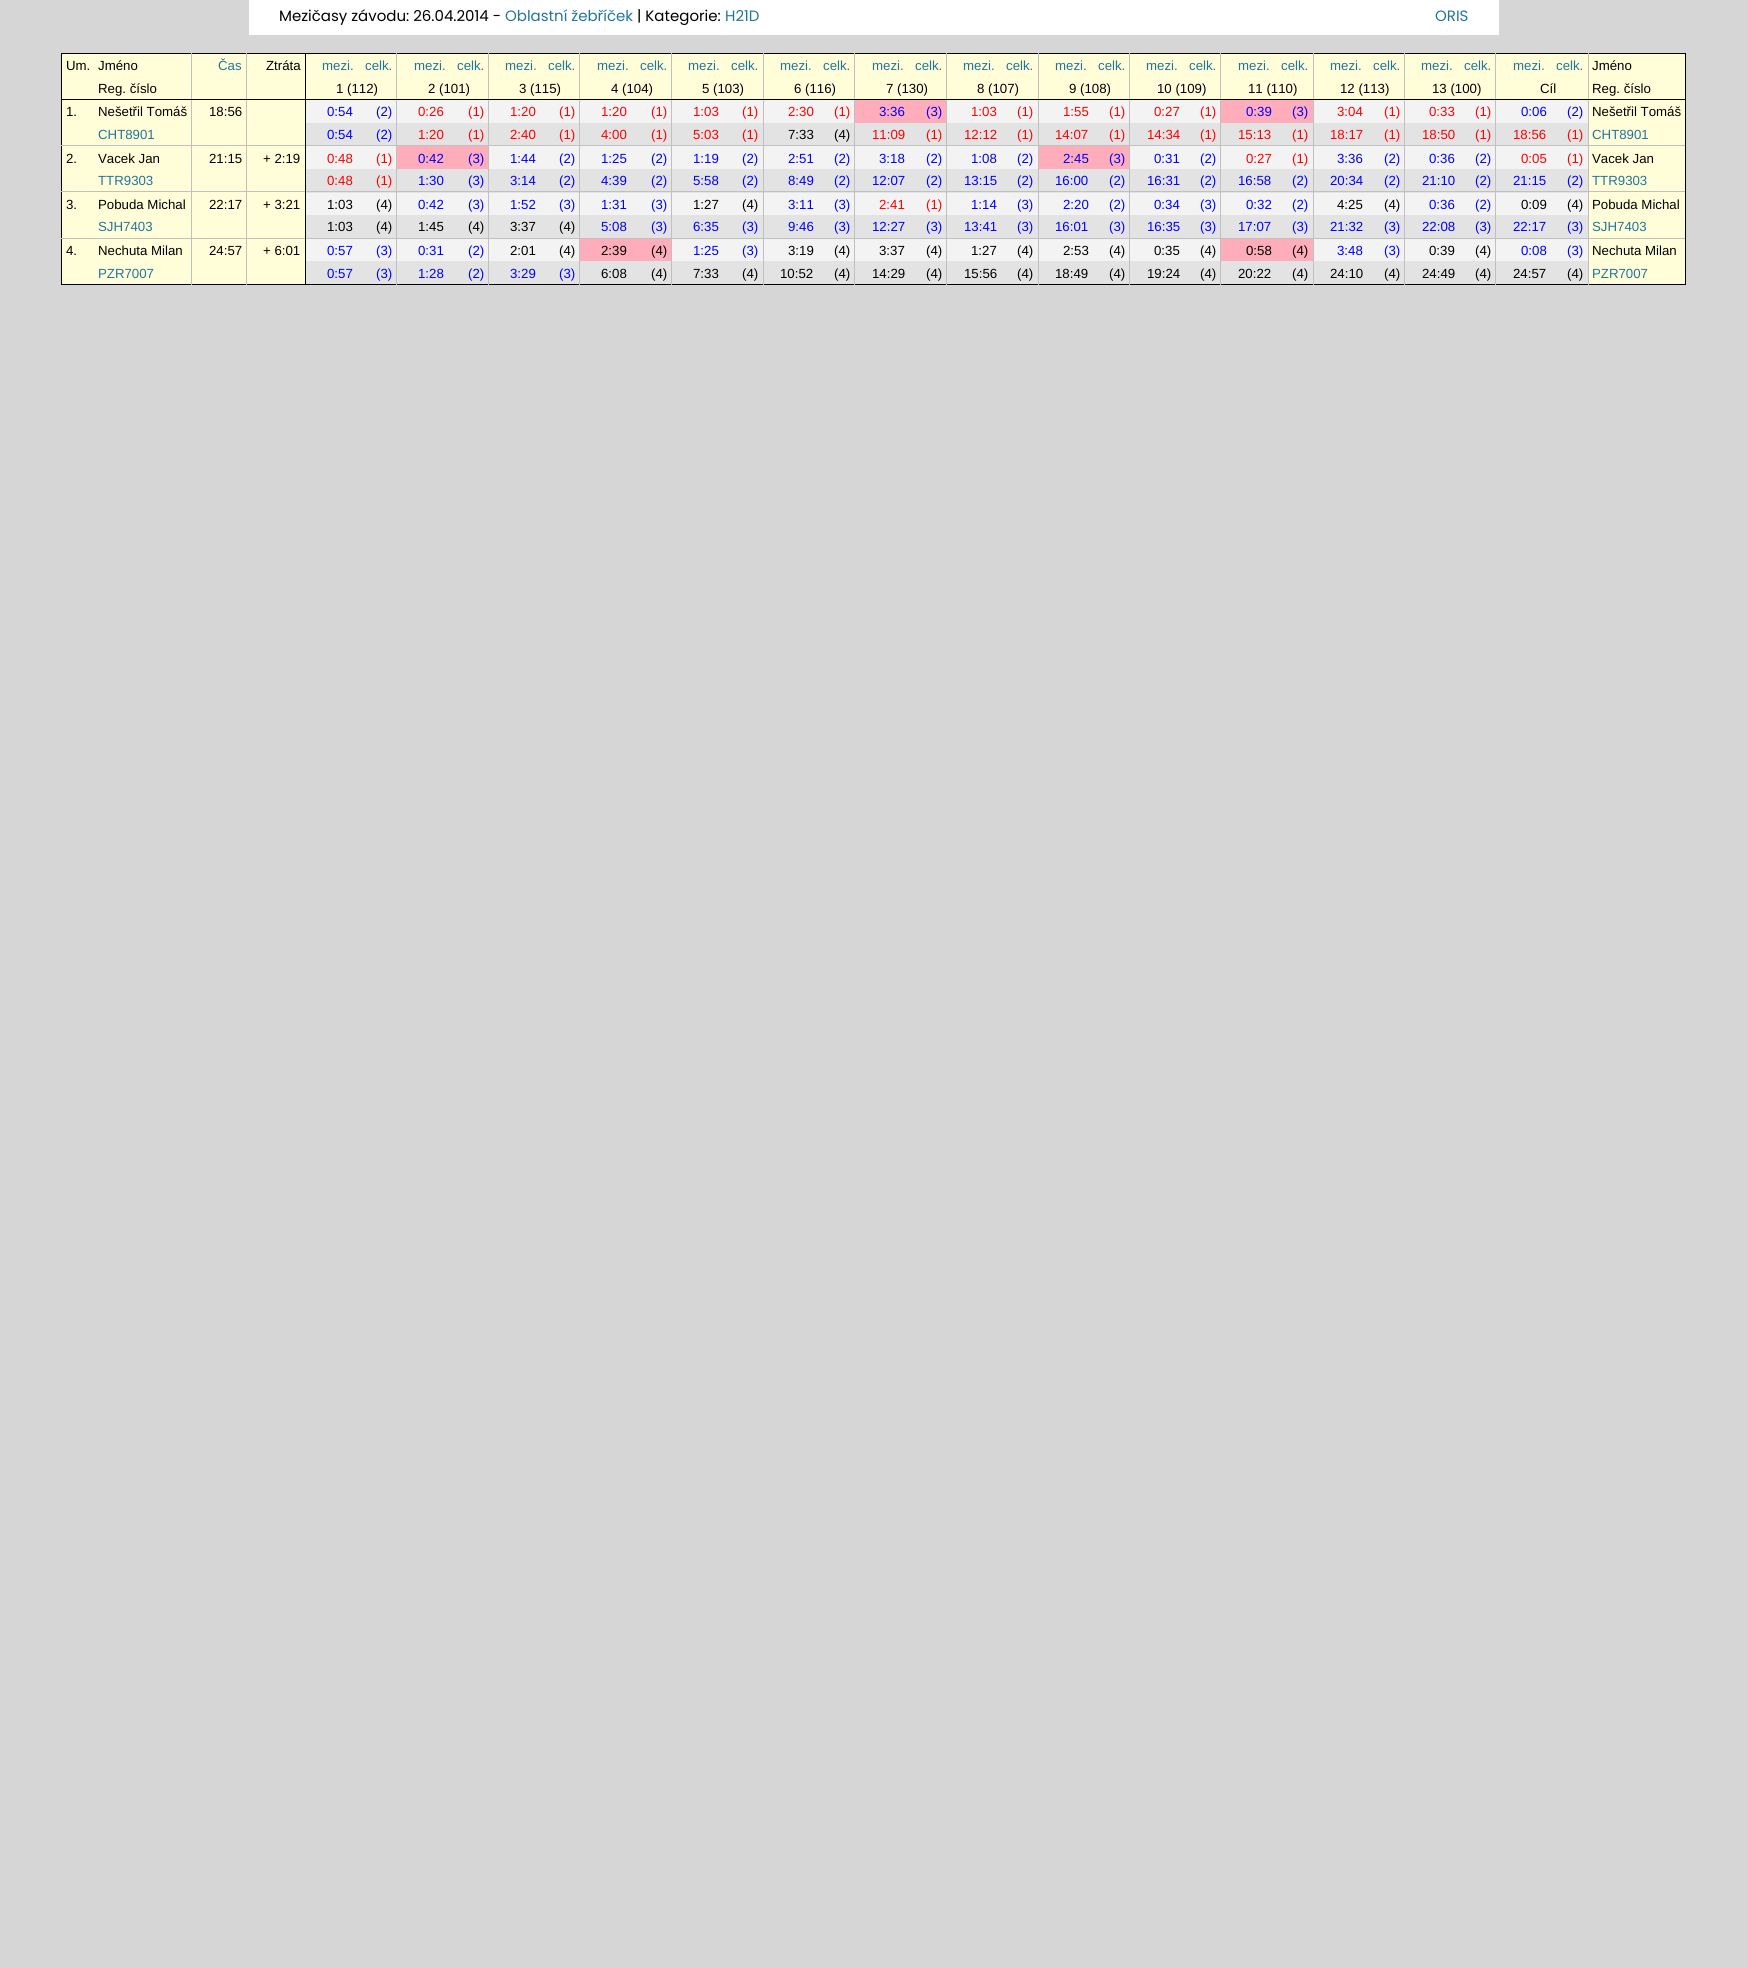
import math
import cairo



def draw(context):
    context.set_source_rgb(214 / 255, 214 / 255, 214 / 255)
    context.paint()
    context.set_source_rgb(1, 1, 1)
    context.rectangle(249, 0, 1250, 35)
    context.fill()
    context.set_source_rgb(0, 0, 0)
    context.rectangle(61, 53, 1625, 1)
    context.fill()
    context.rectangle(1685, 53, 1, 232)
    context.fill()
    context.rectangle(61, 284, 1625, 1)
    context.fill()
    context.rectangle(61, 53, 1, 232)
    context.fill()
    context.set_source_rgb(1, 254 / 255, 217 / 255)
    context.rectangle(62, 54, 184, 22)
    context.fill()
    context.rectangle(247, 54, 58, 45)
    context.fill()
    context.rectangle(306, 54, 90, 45)
    context.fill()
    context.rectangle(397, 54, 91, 45)
    context.fill()
    context.rectangle(489, 54, 90, 45)
    context.fill()
    context.rectangle(580, 54, 91, 45)
    context.fill()
    context.rectangle(672, 54, 91, 45)
    context.fill()
    context.rectangle(764, 54, 90, 45)
    context.fill()
    context.rectangle(855, 54, 91, 45)
    context.fill()
    context.rectangle(947, 54, 91, 45)
    context.fill()
    context.rectangle(1039, 54, 90, 45)
    context.fill()
    context.rectangle(1130, 54, 90, 45)
    context.fill()
    context.rectangle(1221, 54, 92, 45)
    context.fill()
    context.rectangle(1314, 54, 90, 45)
    context.fill()
    context.rectangle(1405, 54, 90, 45)
    context.fill()
    context.rectangle(1496, 54, 92, 45)
    context.fill()
    context.rectangle(1589, 54, 96, 45)
    context.fill()
    context.set_source_rgb(192 / 255, 192 / 255, 192 / 255)
    context.rectangle(61, 145, 1625, 1)
    context.fill()
    context.set_source_rgb(1, 254 / 255, 217 / 255)
    context.rectangle(247, 146, 58, 92)
    context.fill()
    context.rectangle(1589, 146, 96, 92)
    context.fill()
    context.set_source_rgb(227 / 255, 227 / 255, 227 / 255)
    context.rectangle(306, 169, 1282, 24)
    context.fill()
    context.set_source_rgb(1, 254 / 255, 217 / 255)
    context.rectangle(62, 169, 184, 24)
    context.fill()
    context.set_source_rgb(192 / 255, 192 / 255, 192 / 255)
    context.rectangle(61, 191, 1625, 1)
    context.fill()
    context.rectangle(61, 238, 1625, 1)
    context.fill()
    context.rectangle(1588, 261, 1, 24)
    context.fill()
    context.rectangle(1588, 215, 1, 48)
    context.fill()
    context.rectangle(1588, 169, 1, 47)
    context.fill()
    context.rectangle(1588, 99, 1, 71)
    context.fill()
    context.set_source_rgb(0, 0, 0)
    context.rectangle(1588, 99, 98, 1)
    context.fill()
    context.set_source_rgb(192 / 255, 192 / 255, 192 / 255)
    context.rectangle(1588, 53, 1, 47)
    context.fill()
    context.set_source_rgb(243 / 255, 243 / 255, 243 / 255)
    context.rectangle(306, 100, 1282, 23)
    context.fill()
    context.set_source_rgb(227 / 255, 227 / 255, 227 / 255)
    context.rectangle(306, 123, 1282, 22)
    context.fill()
    context.set_source_rgb(243 / 255, 243 / 255, 243 / 255)
    context.rectangle(306, 146, 1282, 23)
    context.fill()
    context.rectangle(306, 193, 1282, 22)
    context.fill()
    context.set_source_rgb(227 / 255, 227 / 255, 227 / 255)
    context.rectangle(306, 215, 1282, 23)
    context.fill()
    context.set_source_rgb(243 / 255, 243 / 255, 243 / 255)
    context.rectangle(306, 239, 1282, 22)
    context.fill()
    context.set_source_rgb(227 / 255, 227 / 255, 227 / 255)
    context.rectangle(306, 261, 1282, 23)
    context.fill()
    context.set_source_rgb(192 / 255, 192 / 255, 192 / 255)
    context.rectangle(1495, 261, 1, 24)
    context.fill()
    context.rectangle(1495, 215, 1, 48)
    context.fill()
    context.rectangle(1495, 169, 1, 47)
    context.fill()
    context.rectangle(1495, 99, 1, 71)
    context.fill()
    context.set_source_rgb(0, 0, 0)
    context.rectangle(1495, 99, 94, 1)
    context.fill()
    context.set_source_rgb(192 / 255, 192 / 255, 192 / 255)
    context.rectangle(1495, 53, 1, 47)
    context.fill()
    context.rectangle(1404, 261, 1, 24)
    context.fill()
    context.rectangle(1404, 215, 1, 48)
    context.fill()
    context.rectangle(1404, 169, 1, 47)
    context.fill()
    context.rectangle(1404, 99, 1, 71)
    context.fill()
    context.set_source_rgb(0, 0, 0)
    context.rectangle(1404, 99, 92, 1)
    context.fill()
    context.set_source_rgb(192 / 255, 192 / 255, 192 / 255)
    context.rectangle(1404, 53, 1, 47)
    context.fill()
    context.rectangle(1313, 261, 1, 24)
    context.fill()
    context.rectangle(1313, 215, 1, 48)
    context.fill()
    context.rectangle(1313, 169, 1, 47)
    context.fill()
    context.rectangle(1313, 99, 1, 71)
    context.fill()
    context.set_source_rgb(0, 0, 0)
    context.rectangle(1313, 99, 92, 1)
    context.fill()
    context.set_source_rgb(192 / 255, 192 / 255, 192 / 255)
    context.rectangle(1313, 53, 1, 47)
    context.fill()
    context.rectangle(1220, 261, 1, 24)
    context.fill()
    context.rectangle(1220, 215, 1, 48)
    context.fill()
    context.rectangle(1220, 169, 1, 47)
    context.fill()
    context.rectangle(1220, 99, 1, 71)
    context.fill()
    context.set_source_rgb(0, 0, 0)
    context.rectangle(1220, 99, 94, 1)
    context.fill()
    context.set_source_rgb(192 / 255, 192 / 255, 192 / 255)
    context.rectangle(1220, 53, 1, 47)
    context.fill()
    context.rectangle(1129, 261, 1, 24)
    context.fill()
    context.rectangle(1129, 215, 1, 48)
    context.fill()
    context.rectangle(1129, 169, 1, 47)
    context.fill()
    context.rectangle(1129, 99, 1, 71)
    context.fill()
    context.set_source_rgb(0, 0, 0)
    context.rectangle(1129, 99, 92, 1)
    context.fill()
    context.set_source_rgb(192 / 255, 192 / 255, 192 / 255)
    context.rectangle(1129, 53, 1, 47)
    context.fill()
    context.rectangle(1038, 261, 1, 24)
    context.fill()
    context.rectangle(1038, 215, 1, 48)
    context.fill()
    context.rectangle(1038, 169, 1, 47)
    context.fill()
    context.rectangle(1038, 99, 1, 71)
    context.fill()
    context.set_source_rgb(0, 0, 0)
    context.rectangle(1038, 99, 92, 1)
    context.fill()
    context.set_source_rgb(192 / 255, 192 / 255, 192 / 255)
    context.rectangle(1038, 53, 1, 47)
    context.fill()
    context.rectangle(946, 261, 1, 24)
    context.fill()
    context.rectangle(946, 215, 1, 48)
    context.fill()
    context.rectangle(946, 169, 1, 47)
    context.fill()
    context.rectangle(946, 99, 1, 71)
    context.fill()
    context.set_source_rgb(0, 0, 0)
    context.rectangle(946, 99, 93, 1)
    context.fill()
    context.set_source_rgb(192 / 255, 192 / 255, 192 / 255)
    context.rectangle(946, 53, 1, 47)
    context.fill()
    context.rectangle(854, 261, 1, 24)
    context.fill()
    context.rectangle(854, 215, 1, 48)
    context.fill()
    context.rectangle(854, 169, 1, 47)
    context.fill()
    context.rectangle(854, 99, 1, 71)
    context.fill()
    context.set_source_rgb(0, 0, 0)
    context.rectangle(854, 99, 94, 1)
    context.fill()
    context.set_source_rgb(192 / 255, 192 / 255, 192 / 255)
    context.rectangle(854, 53, 1, 47)
    context.fill()
    context.rectangle(763, 261, 1, 24)
    context.fill()
    context.rectangle(763, 215, 1, 48)
    context.fill()
    context.rectangle(763, 169, 1, 47)
    context.fill()
    context.rectangle(763, 99, 1, 71)
    context.fill()
    context.set_source_rgb(0, 0, 0)
    context.rectangle(763, 99, 92, 1)
    context.fill()
    context.set_source_rgb(192 / 255, 192 / 255, 192 / 255)
    context.rectangle(763, 53, 1, 47)
    context.fill()
    context.rectangle(671, 261, 1, 24)
    context.fill()
    context.rectangle(671, 215, 1, 48)
    context.fill()
    context.rectangle(671, 169, 1, 47)
    context.fill()
    context.rectangle(671, 99, 1, 71)
    context.fill()
    context.set_source_rgb(0, 0, 0)
    context.rectangle(671, 99, 93, 1)
    context.fill()
    context.set_source_rgb(192 / 255, 192 / 255, 192 / 255)
    context.rectangle(671, 53, 1, 47)
    context.fill()
    context.rectangle(579, 261, 1, 24)
    context.fill()
    context.rectangle(579, 215, 1, 48)
    context.fill()
    context.rectangle(579, 169, 1, 47)
    context.fill()
    context.rectangle(579, 99, 1, 71)
    context.fill()
    context.set_source_rgb(0, 0, 0)
    context.rectangle(579, 99, 94, 1)
    context.fill()
    context.set_source_rgb(192 / 255, 192 / 255, 192 / 255)
    context.rectangle(579, 53, 1, 47)
    context.fill()
    context.rectangle(488, 261, 1, 24)
    context.fill()
    context.rectangle(488, 215, 1, 48)
    context.fill()
    context.rectangle(488, 169, 1, 47)
    context.fill()
    context.rectangle(488, 99, 1, 71)
    context.fill()
    context.set_source_rgb(0, 0, 0)
    context.rectangle(488, 99, 92, 1)
    context.fill()
    context.set_source_rgb(192 / 255, 192 / 255, 192 / 255)
    context.rectangle(488, 53, 1, 47)
    context.fill()
    context.rectangle(396, 261, 1, 24)
    context.fill()
    context.rectangle(396, 215, 1, 48)
    context.fill()
    context.rectangle(396, 169, 1, 47)
    context.fill()
    context.rectangle(396, 99, 1, 71)
    context.fill()
    context.set_source_rgb(0, 0, 0)
    context.rectangle(396, 99, 93, 1)
    context.fill()
    context.set_source_rgb(192 / 255, 192 / 255, 192 / 255)
    context.rectangle(396, 53, 1, 47)
    context.fill()
    context.set_source_rgb(0, 0, 0)
    context.rectangle(305, 261, 1, 24)
    context.fill()
    context.rectangle(305, 215, 1, 48)
    context.fill()
    context.rectangle(305, 169, 1, 47)
    context.fill()
    context.rectangle(305, 99, 1, 71)
    context.fill()
    context.rectangle(305, 99, 93, 1)
    context.fill()
    context.rectangle(305, 53, 1, 47)
    context.fill()
    context.set_source_rgb(192 / 255, 192 / 255, 192 / 255)
    context.rectangle(246, 261, 1, 24)
    context.fill()
    context.rectangle(246, 215, 1, 48)
    context.fill()
    context.rectangle(246, 169, 1, 47)
    context.fill()
    context.rectangle(246, 99, 1, 71)
    context.fill()
    context.set_source_rgb(0, 0, 0)
    context.rectangle(246, 99, 60, 1)
    context.fill()
    context.set_source_rgb(192 / 255, 192 / 255, 192 / 255)
    context.rectangle(246, 53, 1, 47)
    context.fill()
    context.set_source_rgb(1, 254 / 255, 217 / 255)
    context.rectangle(62, 100, 184, 23)
    context.fill()
    context.rectangle(62, 123, 184, 22)
    context.fill()
    context.rectangle(62, 146, 184, 23)
    context.fill()
    context.rectangle(62, 193, 184, 22)
    context.fill()
    context.rectangle(62, 215, 184, 23)
    context.fill()
    context.rectangle(62, 239, 184, 22)
    context.fill()
    context.rectangle(62, 261, 184, 23)
    context.fill()
    context.set_source_rgb(192 / 255, 192 / 255, 192 / 255)
    context.rectangle(191, 261, 1, 24)
    context.fill()
    context.rectangle(191, 215, 1, 48)
    context.fill()
    context.rectangle(191, 169, 1, 47)
    context.fill()
    context.rectangle(191, 99, 1, 71)
    context.fill()
    context.set_source_rgb(0, 0, 0)
    context.rectangle(191, 99, 57, 1)
    context.fill()
    context.set_source_rgb(1, 254 / 255, 217 / 255)
    context.rectangle(62, 76, 184, 23)
    context.fill()
    context.set_source_rgb(192 / 255, 192 / 255, 192 / 255)
    context.rectangle(191, 53, 1, 47)
    context.fill()
    context.set_source_rgb(0, 0, 0)
    context.rectangle(61, 99, 132, 1)
    context.fill()
    context.set_source_rgb(1, 254 / 255, 217 / 255)
    context.rectangle(247, 100, 58, 45)
    context.fill()
    context.set_source_rgb(1, 172 / 255, 187 / 255)
    context.rectangle(855, 100, 91, 23)
    context.fill()
    context.rectangle(1221, 100, 92, 23)
    context.fill()
    context.set_source_rgb(1, 254 / 255, 217 / 255)
    context.rectangle(1589, 100, 96, 45)
    context.fill()
    context.set_source_rgb(1, 172 / 255, 187 / 255)
    context.rectangle(397, 146, 91, 23)
    context.fill()
    context.rectangle(1039, 146, 90, 23)
    context.fill()
    context.set_source_rgb(0, 0, 0)
    context.rectangle(1685, 145, 1, 1)
    context.fill()
    context.rectangle(1685, 191, 1, 1)
    context.fill()
    context.set_source_rgb(1, 254 / 255, 217 / 255)
    context.rectangle(247, 239, 58, 45)
    context.fill()
    context.set_source_rgb(1, 172 / 255, 187 / 255)
    context.rectangle(580, 239, 91, 22)
    context.fill()
    context.rectangle(1221, 239, 92, 22)
    context.fill()
    context.set_source_rgb(1, 254 / 255, 217 / 255)
    context.rectangle(1589, 239, 96, 45)
    context.fill()
    context.set_source_rgb(0, 0, 0)
    context.rectangle(1685, 238, 1, 1)
    context.fill()
    context.select_font_face("Poppins")
    context.set_font_size(15)
    context.move_to(279, 21)
    context.show_text("Mezičasy závodu: 26.04.2014 -")
    context.set_source_rgb(33 / 255, 117 / 255, 155 / 255)
    context.move_to(505, 21)
    context.show_text("Oblastní žebříček")
    context.set_source_rgb(0, 0, 0)
    context.move_to(637, 21)
    context.show_text("| Kategorie:")
    context.set_source_rgb(33 / 255, 117 / 255, 155 / 255)
    context.move_to(725, 21)
    context.show_text("H21D")
    context.move_to(1435, 21)
    context.show_text("ORIS")
    context.select_font_face("Liberation Sans")
    context.set_font_size(13.25)
    context.set_source_rgb(0, 0, 0)
    context.move_to(66, 70)
    context.show_text("Um.")
    context.move_to(98, 70)
    context.show_text("Jméno")
    context.set_source_rgb(33 / 255, 117 / 255, 155 / 255)
    context.move_to(218, 70)
    context.show_text("Čas")
    context.set_source_rgb(0, 0, 0)
    context.move_to(266, 70)
    context.show_text("Ztráta")
    context.set_source_rgb(33 / 255, 117 / 255, 155 / 255)
    context.move_to(322, 70)
    context.show_text("mezi.")
    context.move_to(365, 70)
    context.show_text("celk.")
    context.move_to(414, 70)
    context.show_text("mezi.")
    context.move_to(457, 70)
    context.show_text("celk.")
    context.move_to(505, 70)
    context.show_text("mezi.")
    context.move_to(548, 70)
    context.show_text("celk.")
    context.move_to(597, 70)
    context.show_text("mezi.")
    context.move_to(640, 70)
    context.show_text("celk.")
    context.move_to(688, 70)
    context.show_text("mezi.")
    context.move_to(731, 70)
    context.show_text("celk.")
    context.move_to(780, 70)
    context.show_text("mezi.")
    context.move_to(823, 70)
    context.show_text("celk.")
    context.move_to(872, 70)
    context.show_text("mezi.")
    context.move_to(915, 70)
    context.show_text("celk.")
    context.move_to(963, 70)
    context.show_text("mezi.")
    context.move_to(1006, 70)
    context.show_text("celk.")
    context.move_to(1055, 70)
    context.show_text("mezi.")
    context.move_to(1098, 70)
    context.show_text("celk.")
    context.move_to(1146, 70)
    context.show_text("mezi.")
    context.move_to(1189, 70)
    context.show_text("celk.")
    context.move_to(1238, 70)
    context.show_text("mezi.")
    context.move_to(1281, 70)
    context.show_text("celk.")
    context.move_to(1330, 70)
    context.show_text("mezi.")
    context.move_to(1373, 70)
    context.show_text("celk.")
    context.move_to(1421, 70)
    context.show_text("mezi.")
    context.move_to(1464, 70)
    context.show_text("celk.")
    context.move_to(1513, 70)
    context.show_text("mezi.")
    context.move_to(1556, 70)
    context.show_text("celk.")
    context.set_source_rgb(0, 0, 0)
    context.move_to(1592, 70)
    context.show_text("Jméno")
    context.move_to(98, 93)
    context.show_text("Reg. číslo")
    context.move_to(336, 93)
    context.show_text("1 (112)")
    context.move_to(428, 93)
    context.show_text("2 (101)")
    context.move_to(519, 93)
    context.show_text("3 (115)")
    context.move_to(611, 93)
    context.show_text("4 (104)")
    context.move_to(702, 93)
    context.show_text("5 (103)")
    context.move_to(794, 93)
    context.show_text("6 (116)")
    context.move_to(886, 93)
    context.show_text("7 (130)")
    context.move_to(977, 93)
    context.show_text("8 (107)")
    context.move_to(1069, 93)
    context.show_text("9 (108)")
    context.move_to(1157, 93)
    context.show_text("10 (109)")
    context.move_to(1248, 93)
    context.show_text("11 (110)")
    context.move_to(1340, 93)
    context.show_text("12 (113)")
    context.move_to(1432, 93)
    context.show_text("13 (100)")
    context.move_to(1540, 93)
    context.show_text("Cíl")
    context.move_to(1592, 93)
    context.show_text("Reg. číslo")
    context.move_to(66, 116)
    context.show_text("1.")
    context.move_to(98, 116)
    context.show_text("Nešetřil Tomáš")
    context.move_to(209, 116)
    context.show_text("18:56")
    context.set_source_rgb(0, 0, 1)
    context.move_to(327, 116)
    context.show_text("0:54")
    context.move_to(376, 116)
    context.show_text("(2)")
    context.set_source_rgb(1, 0, 0)
    context.move_to(418, 116)
    context.show_text("0:26")
    context.move_to(468, 116)
    context.show_text("(1)")
    context.move_to(510, 116)
    context.show_text("1:20")
    context.move_to(559, 116)
    context.show_text("(1)")
    context.move_to(601, 116)
    context.show_text("1:20")
    context.move_to(651, 116)
    context.show_text("(1)")
    context.move_to(693, 116)
    context.show_text("1:03")
    context.move_to(742, 116)
    context.show_text("(1)")
    context.move_to(788, 116)
    context.show_text("2:30")
    context.move_to(834, 116)
    context.show_text("(1)")
    context.set_source_rgb(0, 0, 1)
    context.move_to(879, 116)
    context.show_text("3:36")
    context.move_to(926, 116)
    context.show_text("(3)")
    context.set_source_rgb(1, 0, 0)
    context.move_to(971, 116)
    context.show_text("1:03")
    context.move_to(1017, 116)
    context.show_text("(1)")
    context.move_to(1063, 116)
    context.show_text("1:55")
    context.move_to(1109, 116)
    context.show_text("(1)")
    context.move_to(1154, 116)
    context.show_text("0:27")
    context.move_to(1200, 116)
    context.show_text("(1)")
    context.set_source_rgb(0, 0, 1)
    context.move_to(1246, 116)
    context.show_text("0:39")
    context.move_to(1292, 116)
    context.show_text("(3)")
    context.set_source_rgb(1, 0, 0)
    context.move_to(1337, 116)
    context.show_text("3:04")
    context.move_to(1384, 116)
    context.show_text("(1)")
    context.move_to(1429, 116)
    context.show_text("0:33")
    context.move_to(1475, 116)
    context.show_text("(1)")
    context.set_source_rgb(0, 0, 1)
    context.move_to(1521, 116)
    context.show_text("0:06")
    context.move_to(1567, 116)
    context.show_text("(2)")
    context.set_source_rgb(0, 0, 0)
    context.move_to(1592, 116)
    context.show_text("Nešetřil Tomáš")
    context.set_source_rgb(33 / 255, 117 / 255, 155 / 255)
    context.move_to(98, 139)
    context.show_text("CHT8901")
    context.set_source_rgb(0, 0, 1)
    context.move_to(327, 139)
    context.show_text("0:54")
    context.move_to(376, 139)
    context.show_text("(2)")
    context.set_source_rgb(1, 0, 0)
    context.move_to(418, 139)
    context.show_text("1:20")
    context.move_to(468, 139)
    context.show_text("(1)")
    context.move_to(510, 139)
    context.show_text("2:40")
    context.move_to(559, 139)
    context.show_text("(1)")
    context.move_to(601, 139)
    context.show_text("4:00")
    context.move_to(651, 139)
    context.show_text("(1)")
    context.move_to(693, 139)
    context.show_text("5:03")
    context.move_to(742, 139)
    context.show_text("(1)")
    context.set_source_rgb(0, 0, 0)
    context.move_to(788, 139)
    context.show_text("7:33")
    context.move_to(834, 139)
    context.show_text("(4)")
    context.set_source_rgb(1, 0, 0)
    context.move_to(872, 139)
    context.show_text("11:09")
    context.move_to(926, 139)
    context.show_text("(1)")
    context.move_to(964, 139)
    context.show_text("12:12")
    context.move_to(1017, 139)
    context.show_text("(1)")
    context.move_to(1055, 139)
    context.show_text("14:07")
    context.move_to(1109, 139)
    context.show_text("(1)")
    context.move_to(1147, 139)
    context.show_text("14:34")
    context.move_to(1200, 139)
    context.show_text("(1)")
    context.move_to(1238, 139)
    context.show_text("15:13")
    context.move_to(1292, 139)
    context.show_text("(1)")
    context.move_to(1330, 139)
    context.show_text("18:17")
    context.move_to(1384, 139)
    context.show_text("(1)")
    context.move_to(1422, 139)
    context.show_text("18:50")
    context.move_to(1475, 139)
    context.show_text("(1)")
    context.move_to(1513, 139)
    context.show_text("18:56")
    context.move_to(1567, 139)
    context.show_text("(1)")
    context.set_source_rgb(33 / 255, 117 / 255, 155 / 255)
    context.move_to(1592, 139)
    context.show_text("CHT8901")
    context.set_source_rgb(0, 0, 0)
    context.move_to(66, 163)
    context.show_text("2.")
    context.move_to(98, 163)
    context.show_text("Vacek Jan")
    context.move_to(209, 163)
    context.show_text("21:15")
    context.move_to(263, 163)
    context.show_text("+ 2:19")
    context.set_source_rgb(1, 0, 0)
    context.move_to(327, 163)
    context.show_text("0:48")
    context.move_to(376, 163)
    context.show_text("(1)")
    context.set_source_rgb(0, 0, 1)
    context.move_to(418, 163)
    context.show_text("0:42")
    context.move_to(468, 163)
    context.show_text("(3)")
    context.move_to(510, 163)
    context.show_text("1:44")
    context.move_to(559, 163)
    context.show_text("(2)")
    context.move_to(601, 163)
    context.show_text("1:25")
    context.move_to(651, 163)
    context.show_text("(2)")
    context.move_to(693, 163)
    context.show_text("1:19")
    context.move_to(742, 163)
    context.show_text("(2)")
    context.move_to(788, 163)
    context.show_text("2:51")
    context.move_to(834, 163)
    context.show_text("(2)")
    context.move_to(879, 163)
    context.show_text("3:18")
    context.move_to(926, 163)
    context.show_text("(2)")
    context.move_to(971, 163)
    context.show_text("1:08")
    context.move_to(1017, 163)
    context.show_text("(2)")
    context.move_to(1063, 163)
    context.show_text("2:45")
    context.move_to(1109, 163)
    context.show_text("(3)")
    context.move_to(1154, 163)
    context.show_text("0:31")
    context.move_to(1200, 163)
    context.show_text("(2)")
    context.set_source_rgb(1, 0, 0)
    context.move_to(1246, 163)
    context.show_text("0:27")
    context.move_to(1292, 163)
    context.show_text("(1)")
    context.set_source_rgb(0, 0, 1)
    context.move_to(1337, 163)
    context.show_text("3:36")
    context.move_to(1384, 163)
    context.show_text("(2)")
    context.move_to(1429, 163)
    context.show_text("0:36")
    context.move_to(1475, 163)
    context.show_text("(2)")
    context.set_source_rgb(1, 0, 0)
    context.move_to(1521, 163)
    context.show_text("0:05")
    context.move_to(1567, 163)
    context.show_text("(1)")
    context.set_source_rgb(0, 0, 0)
    context.move_to(1592, 163)
    context.show_text("Vacek Jan")
    context.set_source_rgb(33 / 255, 117 / 255, 155 / 255)
    context.move_to(98, 185)
    context.show_text("TTR9303")
    context.set_source_rgb(1, 0, 0)
    context.move_to(327, 185)
    context.show_text("0:48")
    context.move_to(376, 185)
    context.show_text("(1)")
    context.set_source_rgb(0, 0, 1)
    context.move_to(418, 185)
    context.show_text("1:30")
    context.move_to(468, 185)
    context.show_text("(3)")
    context.move_to(510, 185)
    context.show_text("3:14")
    context.move_to(559, 185)
    context.show_text("(2)")
    context.move_to(601, 185)
    context.show_text("4:39")
    context.move_to(651, 185)
    context.show_text("(2)")
    context.move_to(693, 185)
    context.show_text("5:58")
    context.move_to(742, 185)
    context.show_text("(2)")
    context.move_to(788, 185)
    context.show_text("8:49")
    context.move_to(834, 185)
    context.show_text("(2)")
    context.move_to(872, 185)
    context.show_text("12:07")
    context.move_to(926, 185)
    context.show_text("(2)")
    context.move_to(964, 185)
    context.show_text("13:15")
    context.move_to(1017, 185)
    context.show_text("(2)")
    context.move_to(1055, 185)
    context.show_text("16:00")
    context.move_to(1109, 185)
    context.show_text("(2)")
    context.move_to(1147, 185)
    context.show_text("16:31")
    context.move_to(1200, 185)
    context.show_text("(2)")
    context.move_to(1238, 185)
    context.show_text("16:58")
    context.move_to(1292, 185)
    context.show_text("(2)")
    context.move_to(1330, 185)
    context.show_text("20:34")
    context.move_to(1384, 185)
    context.show_text("(2)")
    context.move_to(1422, 185)
    context.show_text("21:10")
    context.move_to(1475, 185)
    context.show_text("(2)")
    context.move_to(1513, 185)
    context.show_text("21:15")
    context.move_to(1567, 185)
    context.show_text("(2)")
    context.set_source_rgb(33 / 255, 117 / 255, 155 / 255)
    context.move_to(1592, 185)
    context.show_text("TTR9303")
    context.set_source_rgb(0, 0, 0)
    context.move_to(66, 209)
    context.show_text("3.")
    context.move_to(98, 209)
    context.show_text("Pobuda Michal")
    context.move_to(209, 209)
    context.show_text("22:17")
    context.move_to(263, 209)
    context.show_text("+ 3:21")
    context.move_to(327, 209)
    context.show_text("1:03")
    context.move_to(376, 209)
    context.show_text("(4)")
    context.set_source_rgb(0, 0, 1)
    context.move_to(418, 209)
    context.show_text("0:42")
    context.move_to(468, 209)
    context.show_text("(3)")
    context.move_to(510, 209)
    context.show_text("1:52")
    context.move_to(559, 209)
    context.show_text("(3)")
    context.move_to(601, 209)
    context.show_text("1:31")
    context.move_to(651, 209)
    context.show_text("(3)")
    context.set_source_rgb(0, 0, 0)
    context.move_to(693, 209)
    context.show_text("1:27")
    context.move_to(742, 209)
    context.show_text("(4)")
    context.set_source_rgb(0, 0, 1)
    context.move_to(788, 209)
    context.show_text("3:11")
    context.move_to(834, 209)
    context.show_text("(3)")
    context.set_source_rgb(1, 0, 0)
    context.move_to(879, 209)
    context.show_text("2:41")
    context.move_to(926, 209)
    context.show_text("(1)")
    context.set_source_rgb(0, 0, 1)
    context.move_to(971, 209)
    context.show_text("1:14")
    context.move_to(1017, 209)
    context.show_text("(3)")
    context.move_to(1063, 209)
    context.show_text("2:20")
    context.move_to(1109, 209)
    context.show_text("(2)")
    context.move_to(1154, 209)
    context.show_text("0:34")
    context.move_to(1200, 209)
    context.show_text("(3)")
    context.move_to(1246, 209)
    context.show_text("0:32")
    context.move_to(1292, 209)
    context.show_text("(2)")
    context.set_source_rgb(0, 0, 0)
    context.move_to(1337, 209)
    context.show_text("4:25")
    context.move_to(1384, 209)
    context.show_text("(4)")
    context.set_source_rgb(0, 0, 1)
    context.move_to(1429, 209)
    context.show_text("0:36")
    context.move_to(1475, 209)
    context.show_text("(2)")
    context.set_source_rgb(0, 0, 0)
    context.move_to(1521, 209)
    context.show_text("0:09")
    context.move_to(1567, 209)
    context.show_text("(4)")
    context.move_to(1592, 209)
    context.show_text("Pobuda Michal")
    context.set_source_rgb(33 / 255, 117 / 255, 155 / 255)
    context.move_to(98, 231)
    context.show_text("SJH7403")
    context.set_source_rgb(0, 0, 0)
    context.move_to(327, 231)
    context.show_text("1:03")
    context.move_to(376, 231)
    context.show_text("(4)")
    context.move_to(418, 231)
    context.show_text("1:45")
    context.move_to(468, 231)
    context.show_text("(4)")
    context.move_to(510, 231)
    context.show_text("3:37")
    context.move_to(559, 231)
    context.show_text("(4)")
    context.set_source_rgb(0, 0, 1)
    context.move_to(601, 231)
    context.show_text("5:08")
    context.move_to(651, 231)
    context.show_text("(3)")
    context.move_to(693, 231)
    context.show_text("6:35")
    context.move_to(742, 231)
    context.show_text("(3)")
    context.move_to(788, 231)
    context.show_text("9:46")
    context.move_to(834, 231)
    context.show_text("(3)")
    context.move_to(872, 231)
    context.show_text("12:27")
    context.move_to(926, 231)
    context.show_text("(3)")
    context.move_to(964, 231)
    context.show_text("13:41")
    context.move_to(1017, 231)
    context.show_text("(3)")
    context.move_to(1055, 231)
    context.show_text("16:01")
    context.move_to(1109, 231)
    context.show_text("(3)")
    context.move_to(1147, 231)
    context.show_text("16:35")
    context.move_to(1200, 231)
    context.show_text("(3)")
    context.move_to(1238, 231)
    context.show_text("17:07")
    context.move_to(1292, 231)
    context.show_text("(3)")
    context.move_to(1330, 231)
    context.show_text("21:32")
    context.move_to(1384, 231)
    context.show_text("(3)")
    context.move_to(1422, 231)
    context.show_text("22:08")
    context.move_to(1475, 231)
    context.show_text("(3)")
    context.move_to(1513, 231)
    context.show_text("22:17")
    context.move_to(1567, 231)
    context.show_text("(3)")
    context.set_source_rgb(33 / 255, 117 / 255, 155 / 255)
    context.move_to(1592, 231)
    context.show_text("SJH7403")
    context.set_source_rgb(0, 0, 0)
    context.move_to(66, 255)
    context.show_text("4.")
    context.move_to(98, 255)
    context.show_text("Nechuta Milan")
    context.move_to(209, 255)
    context.show_text("24:57")
    context.move_to(263, 255)
    context.show_text("+ 6:01")
    context.set_source_rgb(0, 0, 1)
    context.move_to(327, 255)
    context.show_text("0:57")
    context.move_to(376, 255)
    context.show_text("(3)")
    context.move_to(418, 255)
    context.show_text("0:31")
    context.move_to(468, 255)
    context.show_text("(2)")
    context.set_source_rgb(0, 0, 0)
    context.move_to(510, 255)
    context.show_text("2:01")
    context.move_to(559, 255)
    context.show_text("(4)")
    context.move_to(601, 255)
    context.show_text("2:39")
    context.move_to(651, 255)
    context.show_text("(4)")
    context.set_source_rgb(0, 0, 1)
    context.move_to(693, 255)
    context.show_text("1:25")
    context.move_to(742, 255)
    context.show_text("(3)")
    context.set_source_rgb(0, 0, 0)
    context.move_to(788, 255)
    context.show_text("3:19")
    context.move_to(834, 255)
    context.show_text("(4)")
    context.move_to(879, 255)
    context.show_text("3:37")
    context.move_to(926, 255)
    context.show_text("(4)")
    context.move_to(971, 255)
    context.show_text("1:27")
    context.move_to(1017, 255)
    context.show_text("(4)")
    context.move_to(1063, 255)
    context.show_text("2:53")
    context.move_to(1109, 255)
    context.show_text("(4)")
    context.move_to(1154, 255)
    context.show_text("0:35")
    context.move_to(1200, 255)
    context.show_text("(4)")
    context.move_to(1246, 255)
    context.show_text("0:58")
    context.move_to(1292, 255)
    context.show_text("(4)")
    context.set_source_rgb(0, 0, 1)
    context.move_to(1337, 255)
    context.show_text("3:48")
    context.move_to(1384, 255)
    context.show_text("(3)")
    context.set_source_rgb(0, 0, 0)
    context.move_to(1429, 255)
    context.show_text("0:39")
    context.move_to(1475, 255)
    context.show_text("(4)")
    context.set_source_rgb(0, 0, 1)
    context.move_to(1521, 255)
    context.show_text("0:08")
    context.move_to(1567, 255)
    context.show_text("(3)")
    context.set_source_rgb(0, 0, 0)
    context.move_to(1592, 255)
    context.show_text("Nechuta Milan")
    context.set_source_rgb(33 / 255, 117 / 255, 155 / 255)
    context.move_to(98, 278)
    context.show_text("PZR7007")
    context.set_source_rgb(0, 0, 1)
    context.move_to(327, 278)
    context.show_text("0:57")
    context.move_to(376, 278)
    context.show_text("(3)")
    context.move_to(418, 278)
    context.show_text("1:28")
    context.move_to(468, 278)
    context.show_text("(2)")
    context.move_to(510, 278)
    context.show_text("3:29")
    context.move_to(559, 278)
    context.show_text("(3)")
    context.set_source_rgb(0, 0, 0)
    context.move_to(601, 278)
    context.show_text("6:08")
    context.move_to(651, 278)
    context.show_text("(4)")
    context.move_to(693, 278)
    context.show_text("7:33")
    context.move_to(742, 278)
    context.show_text("(4)")
    context.move_to(780, 278)
    context.show_text("10:52")
    context.move_to(834, 278)
    context.show_text("(4)")
    context.move_to(872, 278)
    context.show_text("14:29")
    context.move_to(926, 278)
    context.show_text("(4)")
    context.move_to(964, 278)
    context.show_text("15:56")
    context.move_to(1017, 278)
    context.show_text("(4)")
    context.move_to(1055, 278)
    context.show_text("18:49")
    context.move_to(1109, 278)
    context.show_text("(4)")
    context.move_to(1147, 278)
    context.show_text("19:24")
    context.move_to(1200, 278)
    context.show_text("(4)")
    context.move_to(1238, 278)
    context.show_text("20:22")
    context.move_to(1292, 278)
    context.show_text("(4)")
    context.move_to(1330, 278)
    context.show_text("24:10")
    context.move_to(1384, 278)
    context.show_text("(4)")
    context.move_to(1422, 278)
    context.show_text("24:49")
    context.move_to(1475, 278)
    context.show_text("(4)")
    context.move_to(1513, 278)
    context.show_text("24:57")
    context.move_to(1567, 278)
    context.show_text("(4)")
    context.set_source_rgb(33 / 255, 117 / 255, 155 / 255)
    context.move_to(1592, 278)
    context.show_text("PZR7007")


surface = cairo.ImageSurface(cairo.Format.RGB24, 1747, 1968)
context = cairo.Context(surface)
options = cairo.FontOptions()
options.set_hint_metrics(cairo.HintMetrics.OFF)
options.set_hint_style(cairo.HintStyle.NONE)
context.set_font_options(options)
context.set_miter_limit(4)
draw(context)
surface.write_to_png("out.png")
